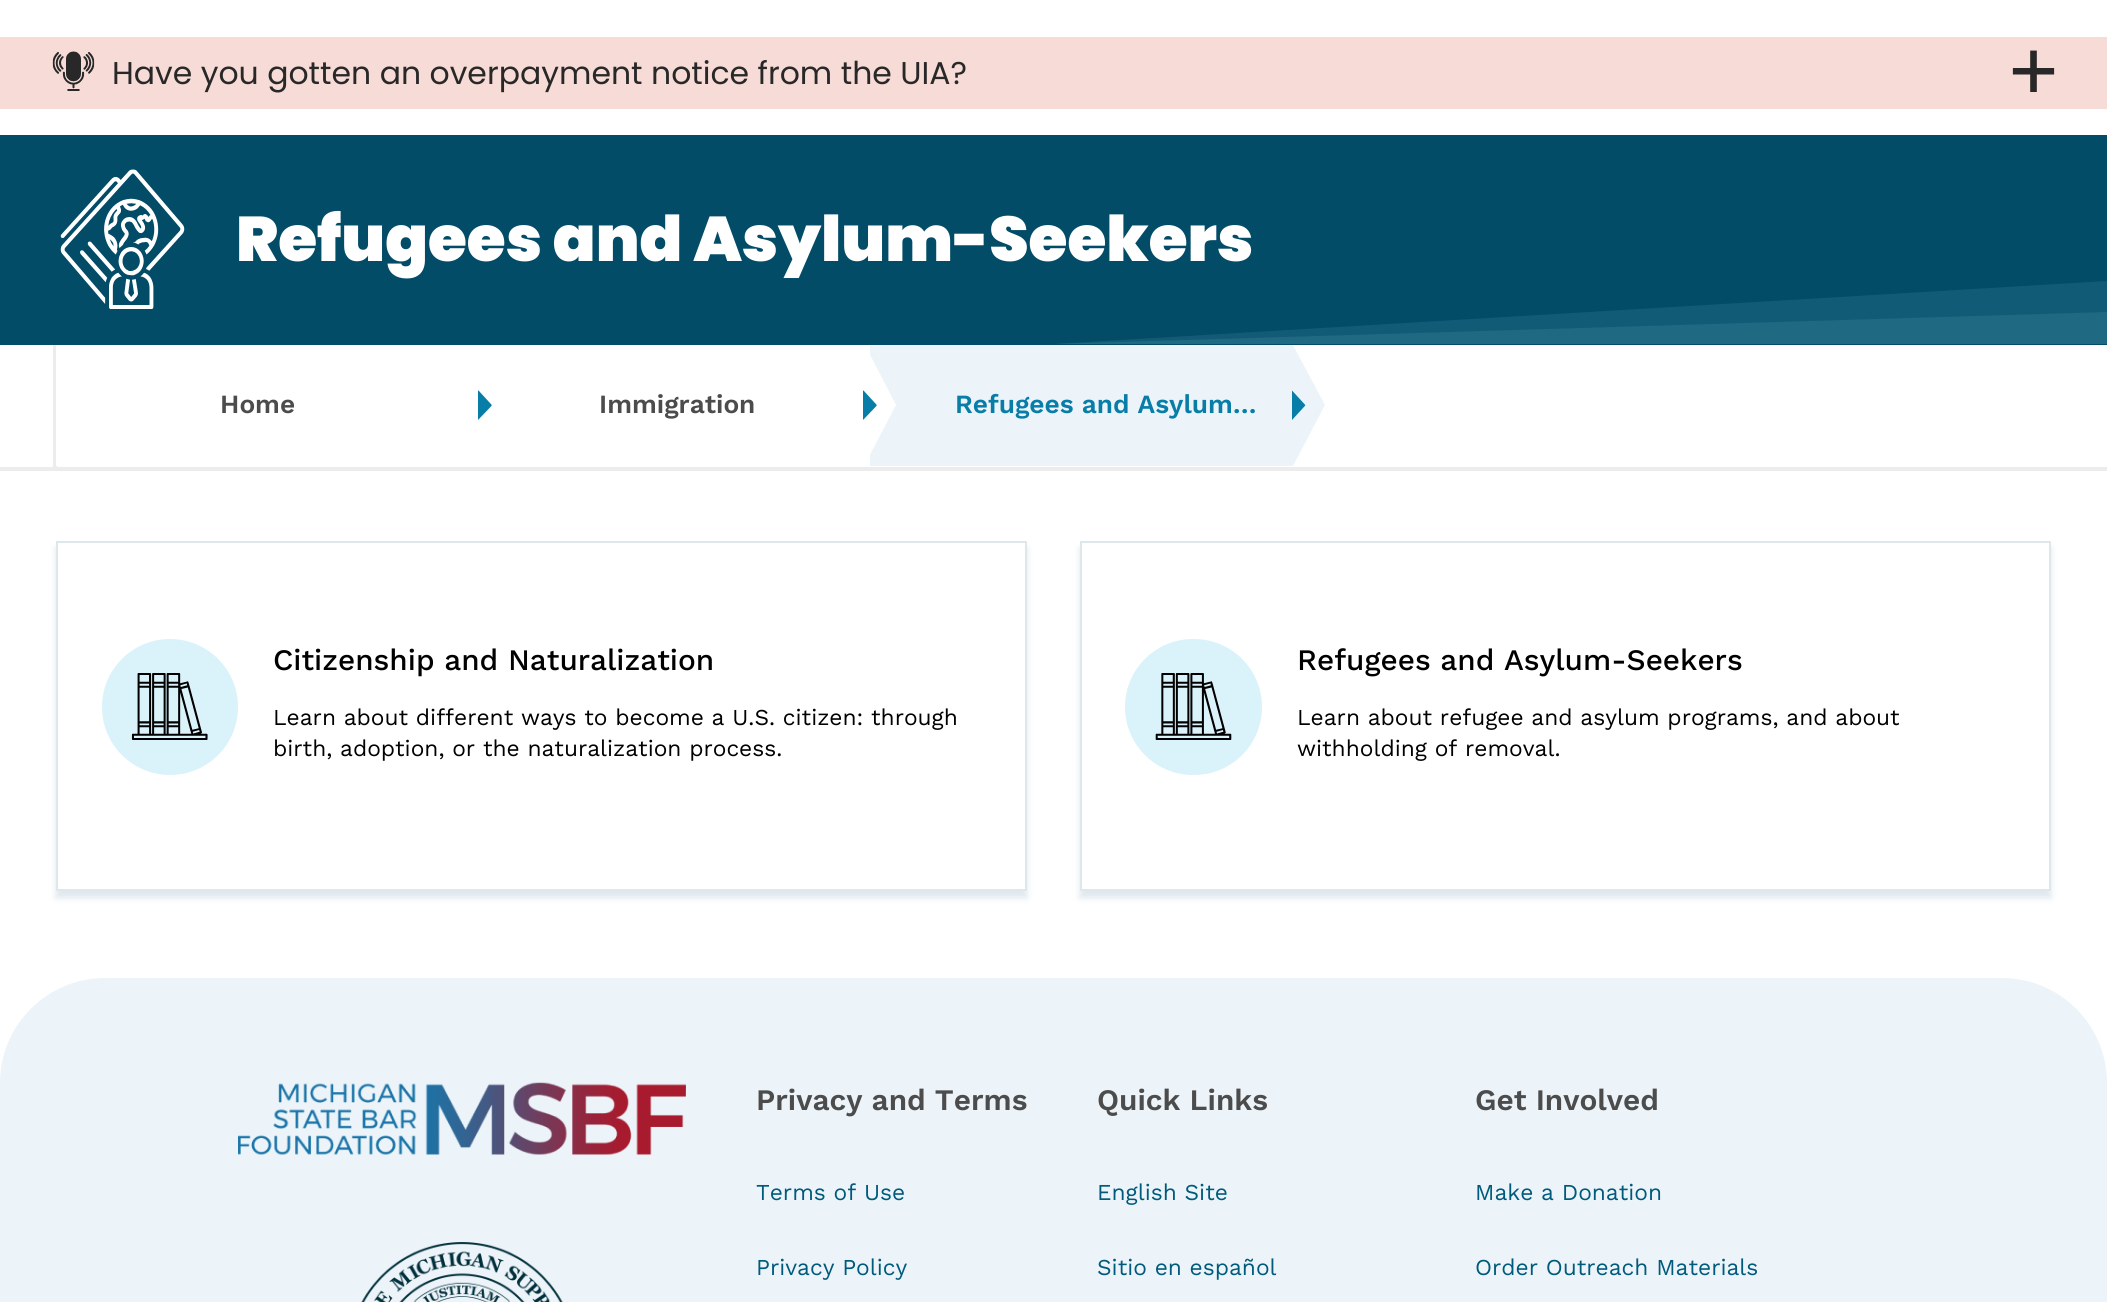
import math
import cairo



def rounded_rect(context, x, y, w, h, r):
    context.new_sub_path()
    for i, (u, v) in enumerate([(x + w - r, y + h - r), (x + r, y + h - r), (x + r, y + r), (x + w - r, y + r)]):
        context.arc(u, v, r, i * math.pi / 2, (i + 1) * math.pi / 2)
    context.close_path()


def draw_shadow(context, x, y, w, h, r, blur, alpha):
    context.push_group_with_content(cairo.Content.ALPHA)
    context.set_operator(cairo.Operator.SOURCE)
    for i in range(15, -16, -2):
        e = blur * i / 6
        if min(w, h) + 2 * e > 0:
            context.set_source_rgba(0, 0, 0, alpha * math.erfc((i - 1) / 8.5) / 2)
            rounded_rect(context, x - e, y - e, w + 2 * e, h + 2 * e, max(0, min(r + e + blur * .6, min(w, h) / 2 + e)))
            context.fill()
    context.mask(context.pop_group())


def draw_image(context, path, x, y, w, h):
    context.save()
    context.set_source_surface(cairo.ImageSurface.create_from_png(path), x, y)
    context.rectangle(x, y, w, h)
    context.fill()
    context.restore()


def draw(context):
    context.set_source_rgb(1, 1, 1)
    context.paint()
    context.set_source_rgb(247 / 255, 219 / 255, 214 / 255)
    context.rectangle(0, 37, 2107, 72)
    context.fill()
    draw_image(context, "images/1.png", 52, 51, 43, 40)
    draw_image(context, "images/2.png", 2012, 50, 43, 42)
    context.set_source_rgb(3 / 255, 76 / 255, 104 / 255)
    context.rectangle(0, 135, 2107, 210)
    context.fill()
    draw_image(context, "images/3.png", 60, 169, 125, 140)
    context.set_source_rgb(18 / 255, 91 / 255, 118 / 255)
    context.new_path()
    context.move_to(1054, 344)
    context.line_to(2107, 344)
    context.line_to(2107, 281)
    context.close_path()
    context.fill()
    context.set_source_rgb(32 / 255, 105 / 255, 131 / 255)
    context.new_path()
    context.move_to(1054, 344)
    context.line_to(2107, 344)
    context.line_to(2107, 312)
    context.close_path()
    context.fill()
    context.set_source_rgb(236 / 255, 236 / 255, 236 / 255)
    context.rectangle(0, 467, 2107, 4)
    context.fill()
    context.rectangle(53, 345, 4, 122)
    context.fill()
    context.set_source_rgb(236 / 255, 244 / 255, 249 / 255)
    context.new_path()
    context.move_to(870, 345)
    context.line_to(1293, 345)
    context.line_to(1325, 405)
    context.line_to(1293, 466)
    context.line_to(870, 466)
    context.close_path()
    context.fill()
    context.set_source_rgb(1, 1, 1)
    context.new_path()
    context.move_to(441, 345)
    context.line_to(441, 466)
    context.line_to(864, 466)
    context.line_to(896, 405)
    context.line_to(865, 345)
    context.close_path()
    context.fill()
    context.new_path()
    context.move_to(56, 345)
    context.line_to(56, 466)
    context.line_to(479, 466)
    context.line_to(511, 405)
    context.line_to(480, 345)
    context.close_path()
    context.fill()
    context.set_source_rgb(8 / 255, 125 / 255, 168 / 255)
    context.new_path()
    context.move_to(478, 419.5)
    context.line_to(478, 420)
    context.line_to(489.5, 408)
    context.curve_to(492.5, 404.5, 492.5, 406, 489.5, 402.5)
    context.line_to(478.5, 390.5)
    context.line_to(478, 390.5)
    context.close_path()
    context.fill()
    context.new_path()
    context.move_to(863, 419.5)
    context.line_to(863, 420)
    context.line_to(874.5, 408)
    context.curve_to(877.5, 404.5, 877.5, 406, 874.5, 402.5)
    context.line_to(863.5, 390.5)
    context.line_to(863, 390.5)
    context.close_path()
    context.fill()
    context.save()
    context.rectangle(1292, 390, 14, 30)
    context.clip()
    context.new_path()
    context.move_to(1291.5, 419.5)
    context.line_to(1292, 420)
    context.line_to(1303, 408)
    context.curve_to(1306, 404.5, 1306, 406, 1303, 402.5)
    context.line_to(1292, 390.5)
    context.line_to(1291.5, 390.5)
    context.close_path()
    context.fill()
    context.restore()
    context.set_source_rgb(38 / 255, 97 / 255, 130 / 255)
    draw_shadow(context, 56, 548, 971, 350, 0, 3.5, 0.15)
    context.set_source_rgb(1, 1, 1)
    context.rectangle(57, 542, 969, 348)
    context.fill_preserve()
    context.set_source_rgb(222 / 255, 231 / 255, 236 / 255)
    context.stroke()
    context.set_source_rgb(218 / 255, 242 / 255, 250 / 255)
    context.arc(170, 707, 68, 0, 2 * math.pi)
    context.fill()
    draw_image(context, "images/4.png", 131, 673, 77, 67)
    context.set_source_rgb(38 / 255, 97 / 255, 130 / 255)
    draw_shadow(context, 1080, 548, 971, 350, 0, 3.5, 0.15)
    context.set_source_rgb(1, 1, 1)
    context.rectangle(1081, 542, 969, 348)
    context.fill_preserve()
    context.set_source_rgb(222 / 255, 231 / 255, 236 / 255)
    context.stroke()
    context.set_source_rgb(218 / 255, 242 / 255, 250 / 255)
    rounded_rect(context, 1125, 639, 137, 136, 68)
    context.fill()
    draw_image(context, "images/5.png", 1155, 673, 77, 67)
    context.set_source_rgb(236 / 255, 244 / 255, 249 / 255)
    context.new_path()
    context.move_to(105, 978)
    context.line_to(2002, 978)
    context.curve_to(2060, 978, 2107, 1025, 2107, 1083)
    context.line_to(2107, 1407)
    context.line_to(0, 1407)
    context.line_to(0, 1083)
    context.curve_to(0, 1025, 47, 978, 105, 978)
    context.close_path()
    context.fill()
    draw_image(context, "images/6.png", 238, 1082, 448, 73)
    draw_image(context, "images/7.png", 361, 1242, 202, 60)
    context.select_font_face("Poppins")
    context.set_font_size(31.5)
    context.set_source_rgb(40 / 255, 40 / 255, 40 / 255)
    context.move_to(112, 84)
    context.show_text("Have you gotten an overpayment notice from the UIA?")
    context.select_font_face("Poppins Black")
    context.set_font_size(63)
    context.set_source_rgb(1, 1, 1)
    context.move_to(236, 261)
    context.show_text("Refugees and Asylum-Seekers")
    context.select_font_face("Work Sans SemiBold")
    context.set_font_size(26.25)
    context.set_source_rgb(76 / 255, 76 / 255, 76 / 255)
    context.move_to(220, 413)
    context.show_text("Home")
    context.move_to(599, 413)
    context.show_text("Immigration")
    context.set_source_rgb(8 / 255, 125 / 255, 168 / 255)
    context.move_to(955, 413)
    context.show_text("Refugees and Asylum…")
    context.select_font_face("Work Sans Medium")
    context.set_font_size(29.75)
    context.set_source_rgb(0, 0, 0)
    context.move_to(273, 670)
    context.show_text("Citizenship and Naturalization")
    context.select_font_face("Work Sans")
    context.set_font_size(22.75)
    context.move_to(273, 725)
    context.show_text("Learn about different ways to become a U.S. citizen: through")
    context.move_to(273, 756)
    context.show_text("birth, adoption, or the naturalization process.")
    context.select_font_face("Work Sans Medium")
    context.set_font_size(29.75)
    context.move_to(1297, 670)
    context.show_text("Refugees and Asylum-Seekers")
    context.select_font_face("Work Sans")
    context.set_font_size(22.75)
    context.move_to(1297, 725)
    context.show_text("Learn about refugee and asylum programs, and about")
    context.move_to(1297, 756)
    context.show_text("withholding of removal.")
    context.select_font_face("Work Sans SemiBold")
    context.set_font_size(29.75)
    context.set_source_rgb(76 / 255, 76 / 255, 76 / 255)
    context.move_to(756, 1110)
    context.show_text("Privacy and Terms")
    context.select_font_face("Work Sans")
    context.set_font_size(22.75)
    context.set_source_rgb(0, 90 / 255, 124 / 255)
    context.move_to(756, 1200)
    context.show_text("Terms of Use")
    context.move_to(756, 1275)
    context.show_text("Privacy Policy")
    context.select_font_face("Work Sans SemiBold")
    context.set_font_size(29.75)
    context.set_source_rgb(76 / 255, 76 / 255, 76 / 255)
    context.move_to(1097, 1110)
    context.show_text("Quick Links")
    context.select_font_face("Work Sans")
    context.set_font_size(22.75)
    context.set_source_rgb(0, 90 / 255, 124 / 255)
    context.move_to(1097, 1200)
    context.show_text("English Site")
    context.move_to(1097, 1275)
    context.show_text("Sitio en español")
    context.select_font_face("Work Sans SemiBold")
    context.set_font_size(29.75)
    context.set_source_rgb(76 / 255, 76 / 255, 76 / 255)
    context.move_to(1475, 1110)
    context.show_text("Get Involved")
    context.select_font_face("Work Sans")
    context.set_font_size(22.75)
    context.set_source_rgb(0, 90 / 255, 124 / 255)
    context.move_to(1475, 1200)
    context.show_text("Make a Donation")
    context.move_to(1475, 1275)
    context.show_text("Order Outreach Materials")


surface = cairo.ImageSurface(cairo.Format.RGB24, 2107, 1302)
context = cairo.Context(surface)
options = cairo.FontOptions()
options.set_hint_metrics(cairo.HintMetrics.OFF)
options.set_hint_style(cairo.HintStyle.NONE)
context.set_font_options(options)
context.set_miter_limit(4)
draw(context)
surface.write_to_png("out.png")
